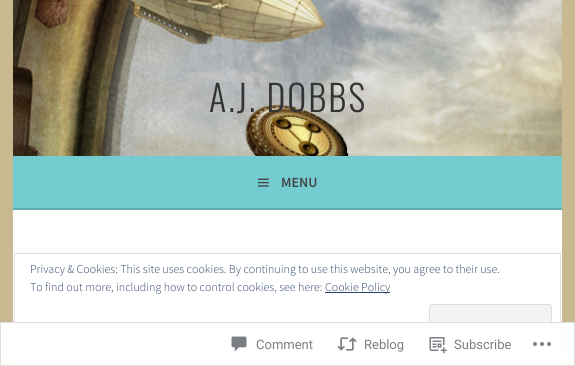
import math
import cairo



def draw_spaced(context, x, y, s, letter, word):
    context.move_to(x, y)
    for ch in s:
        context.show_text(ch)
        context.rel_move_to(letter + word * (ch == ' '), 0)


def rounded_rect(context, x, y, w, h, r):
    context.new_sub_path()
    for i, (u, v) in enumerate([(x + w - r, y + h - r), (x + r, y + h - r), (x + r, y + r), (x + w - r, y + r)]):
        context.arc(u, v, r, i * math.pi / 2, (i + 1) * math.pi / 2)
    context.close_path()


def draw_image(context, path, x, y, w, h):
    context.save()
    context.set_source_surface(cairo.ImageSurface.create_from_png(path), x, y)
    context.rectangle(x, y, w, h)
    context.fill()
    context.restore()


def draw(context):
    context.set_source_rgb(201 / 255, 185 / 255, 145 / 255)
    context.paint()
    draw_image(context, "images/1.png", 13, 0, 549, 156)
    context.set_source_rgb(116 / 255, 204 / 255, 209 / 255)
    context.rectangle(13, 156, 549, 52)
    context.fill()
    context.set_source_rgb(99 / 255, 173 / 255, 178 / 255)
    context.rectangle(13, 208, 549, 2)
    context.fill()
    draw_image(context, "images/2.png", 258, 178, 11, 9)
    context.set_source_rgb(1, 1, 1)
    context.rectangle(13, 210, 549, 156)
    context.fill()
    context.rectangle(14.5, 253.5, 546, 98)
    context.set_source_rgb(222 / 255, 222 / 255, 222 / 255)
    context.set_line_width(1)
    context.stroke()
    context.set_source_rgb(46 / 255, 68 / 255, 103 / 255)
    context.rectangle(325, 292, 65, 1)
    context.fill()
    context.set_source_rgb(243 / 255, 243 / 255, 243 / 255)
    rounded_rect(context, 429, 304, 123, 39, 3)
    context.fill()
    context.set_source_rgb(219 / 255, 219 / 255, 219 / 255)
    context.new_path()
    context.move_to(430, 338)
    context.line_to(430, 340)
    context.curve_to(430, 341, 431, 342, 432, 342)
    context.line_to(549, 342)
    context.curve_to(550, 342, 551, 341, 551, 340)
    context.line_to(551, 338)
    context.curve_to(551, 339, 550, 340, 549, 340)
    context.line_to(432, 340)
    context.line_to(430, 339)
    context.close_path()
    context.fill()
    rounded_rect(context, 429.5, 304.5, 122, 38, 2.5)
    context.set_source_rgb(222 / 255, 222 / 255, 222 / 255)
    context.stroke()
    context.set_source_rgba(1, 1, 1, 0.98)
    context.rectangle(0, 322, 575, 44)
    context.fill()
    context.rectangle(0.5, 322.5, 574, 43)
    context.set_source_rgba(220 / 255, 220 / 255, 222 / 255, 0.98)
    context.stroke()
    draw_image(context, "images/3.png", 231, 336, 16, 16)
    draw_image(context, "images/4.png", 337, 337, 20, 14)
    draw_image(context, "images/5.png", 429, 337, 18, 17)
    draw_image(context, "images/6.png", 533, 342, 18, 4)
    context.select_font_face("Oswald Light")
    context.set_font_size(36)
    context.set_source_rgb(51 / 255, 51 / 255, 51 / 255)
    draw_spaced(context, 209, 112, "A.J. DOBBS", 2, 0)
    context.select_font_face("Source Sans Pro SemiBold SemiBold")
    context.set_font_size(14)
    context.set_source_rgb(68 / 255, 68 / 255, 68 / 255)
    context.move_to(281, 187)
    context.show_text("MENU")
    context.select_font_face("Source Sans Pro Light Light")
    context.set_font_size(12)
    context.set_source_rgb(46 / 255, 68 / 255, 103 / 255)
    context.move_to(30, 273)
    context.show_text("Privacy & Cookies: This site uses cookies. By continuing to use this website, you agree to their use.")
    context.move_to(30, 291)
    context.show_text("To find out more, including how to control cookies, see here:")
    context.move_to(325, 291)
    context.show_text("Cookie Policy")
    context.select_font_face("Roboto")
    context.set_font_size(13)
    context.set_source_rgb(123 / 255, 127 / 255, 133 / 255)
    context.move_to(256, 349)
    context.show_text("Comment")
    context.move_to(364, 349)
    context.show_text("Reblog")
    context.move_to(454, 349)
    context.show_text("Subscribe")


surface = cairo.ImageSurface(cairo.Format.RGB24, 575, 366)
context = cairo.Context(surface)
options = cairo.FontOptions()
options.set_hint_metrics(cairo.HintMetrics.OFF)
options.set_hint_style(cairo.HintStyle.NONE)
context.set_font_options(options)
context.set_miter_limit(4)
draw(context)
surface.write_to_png("out.png")
